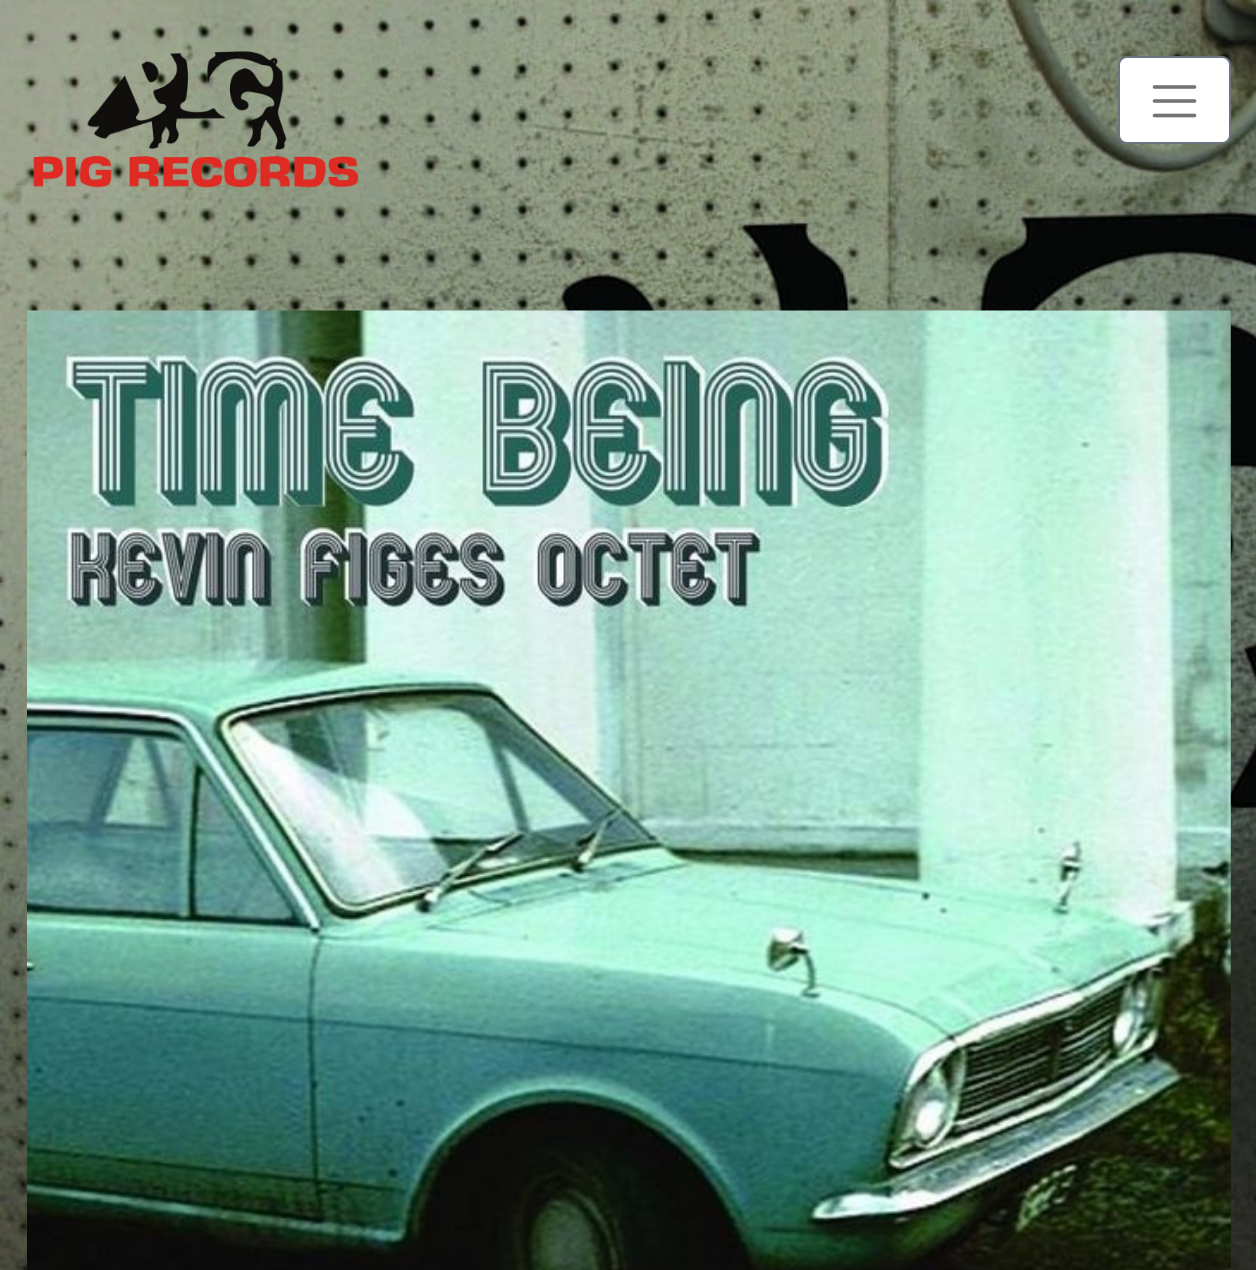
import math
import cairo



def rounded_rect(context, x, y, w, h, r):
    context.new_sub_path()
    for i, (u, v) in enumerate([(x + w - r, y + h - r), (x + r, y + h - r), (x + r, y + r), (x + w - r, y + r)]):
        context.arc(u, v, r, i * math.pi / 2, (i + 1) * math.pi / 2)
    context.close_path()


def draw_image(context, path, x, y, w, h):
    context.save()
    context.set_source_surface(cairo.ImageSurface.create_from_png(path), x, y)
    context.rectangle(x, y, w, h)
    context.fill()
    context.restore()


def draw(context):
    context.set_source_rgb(1, 1, 1)
    context.paint()
    draw_image(context, "images/1.png", 0, 0, 1256, 1270)
    draw_image(context, "images/2.png", 33, 51, 326, 137)
    context.set_source_rgb(1, 1, 1)
    rounded_rect(context, 1119, 57, 111, 86, 8)
    context.fill_preserve()
    context.set_source_rgb(108 / 255, 117 / 255, 125 / 255)
    context.stroke()
    context.new_path()
    context.move_to(1154.5, 87)
    context.line_to(1194.5, 87)
    context.move_to(1154.5, 101)
    context.line_to(1194.5, 101)
    context.move_to(1154.5, 115.5)
    context.line_to(1194.5, 115.5)
    context.set_source_rgb(115 / 255, 115 / 255, 115 / 255)
    context.set_line_width(3.6)
    context.set_line_cap(cairo.LineCap.ROUND)
    context.stroke()
    draw_image(context, "images/3.png", 27, 310, 1204, 960)


surface = cairo.ImageSurface(cairo.Format.RGB24, 1256, 1270)
context = cairo.Context(surface)
options = cairo.FontOptions()
options.set_hint_metrics(cairo.HintMetrics.OFF)
options.set_hint_style(cairo.HintStyle.NONE)
context.set_font_options(options)
context.set_miter_limit(4)
draw(context)
surface.write_to_png("out.png")
